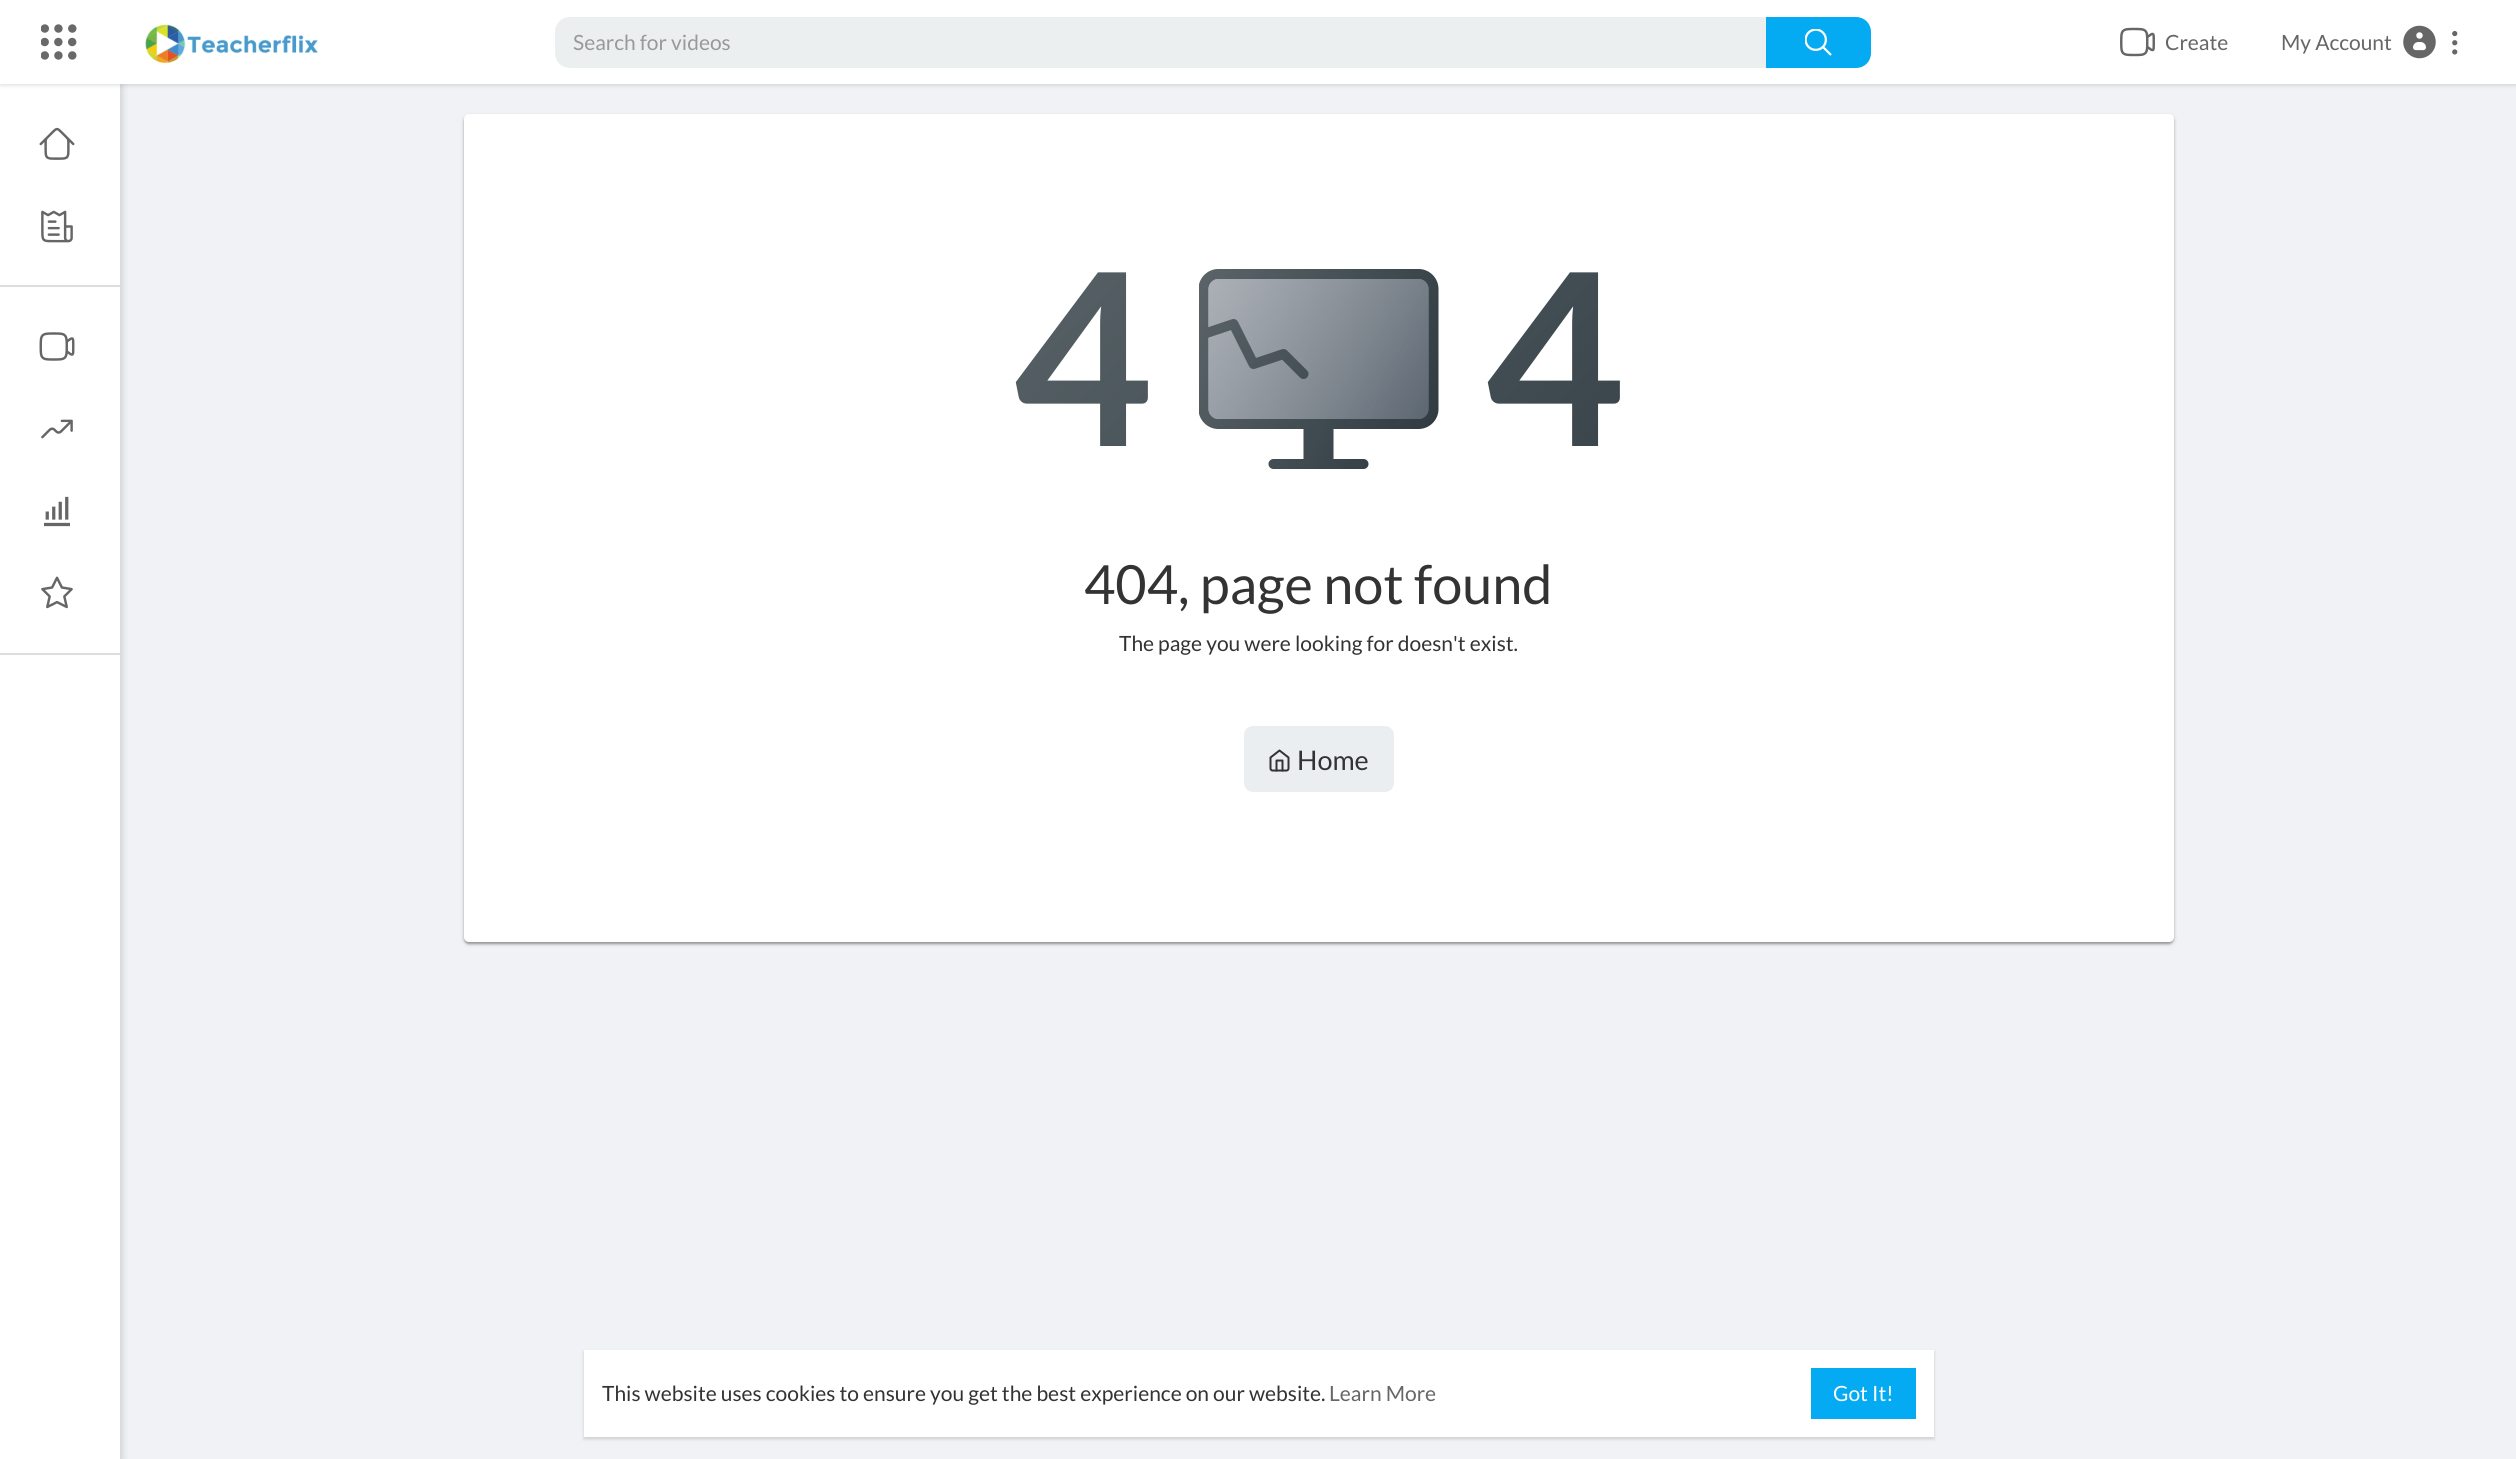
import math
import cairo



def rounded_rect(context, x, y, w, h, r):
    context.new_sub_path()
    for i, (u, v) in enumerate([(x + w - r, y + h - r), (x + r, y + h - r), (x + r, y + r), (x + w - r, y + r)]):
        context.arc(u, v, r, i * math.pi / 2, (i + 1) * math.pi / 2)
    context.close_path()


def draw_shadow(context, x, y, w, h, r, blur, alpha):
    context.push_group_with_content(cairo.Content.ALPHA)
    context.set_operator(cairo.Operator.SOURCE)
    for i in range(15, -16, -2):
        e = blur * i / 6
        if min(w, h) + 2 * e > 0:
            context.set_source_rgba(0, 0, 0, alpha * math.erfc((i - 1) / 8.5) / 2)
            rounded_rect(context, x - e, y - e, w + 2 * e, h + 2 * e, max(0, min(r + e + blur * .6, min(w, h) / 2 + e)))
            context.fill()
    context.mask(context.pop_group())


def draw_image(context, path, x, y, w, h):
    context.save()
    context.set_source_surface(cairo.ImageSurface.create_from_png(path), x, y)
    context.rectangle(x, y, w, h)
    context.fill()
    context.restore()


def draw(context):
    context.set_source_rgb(240 / 255, 242 / 255, 245 / 255)
    context.paint()
    context.set_source_rgb(0, 0, 0)
    draw_shadow(context, 2, 84, 120, 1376, 0, 4, 0.15)
    context.set_source_rgb(1, 1, 1)
    context.rectangle(0, 84, 120, 1375)
    context.fill()
    context.set_source_rgb(0, 0, 0)
    draw_shadow(context, 0, 2, 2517, 84, 0, 1.5, 0.1)
    context.set_source_rgb(1, 1, 1)
    context.rectangle(0, 0, 2516, 84)
    context.fill()
    draw_image(context, "images/1.png", 41, 24, 36, 36)
    draw_image(context, "images/2.png", 145, 24, 173, 40)
    context.set_source_rgb(236 / 255, 239 / 255, 240 / 255)
    context.new_path()
    context.move_to(570, 17)
    context.line_to(1766, 17)
    context.line_to(1766, 68)
    context.line_to(570, 68)
    context.curve_to(561.5, 68, 555, 61.5, 555, 53)
    context.line_to(555, 32)
    context.curve_to(555, 23.5, 561.5, 17, 570, 17)
    context.close_path()
    context.fill()
    context.set_source_rgb(4 / 255, 171 / 255, 242 / 255)
    context.new_path()
    context.move_to(1766, 17)
    context.line_to(1856, 17)
    context.curve_to(1864.5, 17, 1871, 23.5, 1871, 32)
    context.line_to(1871, 53)
    context.curve_to(1871, 61.5, 1864.5, 68, 1856, 68)
    context.line_to(1766, 68)
    context.close_path()
    context.fill()
    draw_image(context, "images/3.png", 1805, 29, 27, 27)
    draw_image(context, "images/4.png", 2120, 27, 35, 30)
    draw_image(context, "images/5.png", 2403, 25, 33, 34)
    draw_image(context, "images/6.png", 2452, 31, 6, 24)
    context.set_source_rgb(221 / 255, 221 / 255, 221 / 255)
    context.rectangle(0, 285, 120, 2)
    context.fill()
    draw_image(context, "images/7.png", 39, 127, 36, 33)
    draw_image(context, "images/8.png", 41, 210, 32, 33)
    context.rectangle(0, 653, 120, 2)
    context.fill()
    draw_image(context, "images/9.png", 39, 332, 36, 29)
    draw_image(context, "images/10.png", 41, 419, 32, 20)
    draw_image(context, "images/11.png", 44, 496, 26, 31)
    draw_image(context, "images/12.png", 41, 576, 32, 33)
    context.set_source_rgb(0, 0, 0)
    draw_shadow(context, 465, 119, 1707, 825, 3, 1, 0.12)
    draw_shadow(context, 464, 116, 1710, 828, 5, 1, 0.14)
    draw_shadow(context, 464, 116, 1710, 828, 5, 2, 0.2)
    context.set_source_rgb(1, 1, 1)
    rounded_rect(context, 464, 114, 1710, 828, 5)
    context.fill()
    draw_image(context, "images/13.png", 1199, 269, 240, 200)
    context.set_source_rgb(235 / 255, 238 / 255, 240 / 255)
    rounded_rect(context, 1244, 726, 150, 66, 9)
    context.fill()
    draw_image(context, "images/14.png", 1269, 749, 21, 23)
    context.set_source_rgb(0, 0, 0)
    draw_shadow(context, 584, 1352, 1350, 87, 0, 1.5, 0.06)
    draw_shadow(context, 584, 1352, 1350, 87, 0, 2, 0.1)
    context.set_source_rgb(1, 1, 1)
    context.rectangle(584, 1350, 1350, 87)
    context.fill()
    context.set_source_rgb(4 / 255, 171 / 255, 242 / 255)
    context.rectangle(1811, 1368, 105, 51)
    context.fill()
    context.select_font_face("Lato")
    context.set_font_size(21)
    context.set_source_rgb(153 / 255, 153 / 255, 153 / 255)
    context.move_to(573, 50)
    context.show_text("Search for videos")
    context.set_source_rgb(102 / 255, 102 / 255, 102 / 255)
    context.move_to(2165, 50)
    context.show_text("Create")
    context.move_to(2281, 50)
    context.show_text("My Account")
    context.select_font_face("Lato", cairo.FontSlant.NORMAL, cairo.FontWeight.BOLD)
    context.set_font_size(240)
    gradient = cairo.LinearGradient(1094, 128, 1543, 577)
    gradient.add_color_stop_rgba(0, 89 / 255, 99 / 255, 104 / 255, 1)
    gradient.add_color_stop_rgba(1, 56 / 255, 68 / 255, 74 / 255, 1)
    context.set_source(gradient)
    context.move_to(1013, 446)
    context.show_text("4")
    context.move_to(1485, 446)
    context.show_text("4")
    context.select_font_face("Lato")
    context.set_font_size(54)
    context.set_source_rgb(51 / 255, 51 / 255, 51 / 255)
    context.move_to(1084, 604)
    context.show_text("404, page not found")
    context.set_font_size(21)
    context.move_to(1119, 651)
    context.show_text("The page you were looking for doesn't exist.")
    context.set_font_size(27)
    context.move_to(1297, 770)
    context.show_text("Home")
    context.set_font_size(21)
    context.move_to(602, 1401)
    context.show_text("This website uses cookies to ensure you get the best experience on our website.")
    context.set_source_rgb(102 / 255, 102 / 255, 102 / 255)
    context.move_to(1329, 1401)
    context.show_text("Learn More")
    context.set_source_rgb(1, 1, 1)
    context.move_to(1833, 1401)
    context.show_text("Got It!")


surface = cairo.ImageSurface(cairo.Format.RGB24, 2516, 1459)
context = cairo.Context(surface)
options = cairo.FontOptions()
options.set_hint_metrics(cairo.HintMetrics.OFF)
options.set_hint_style(cairo.HintStyle.NONE)
context.set_font_options(options)
context.set_miter_limit(4)
draw(context)
surface.write_to_png("out.png")
